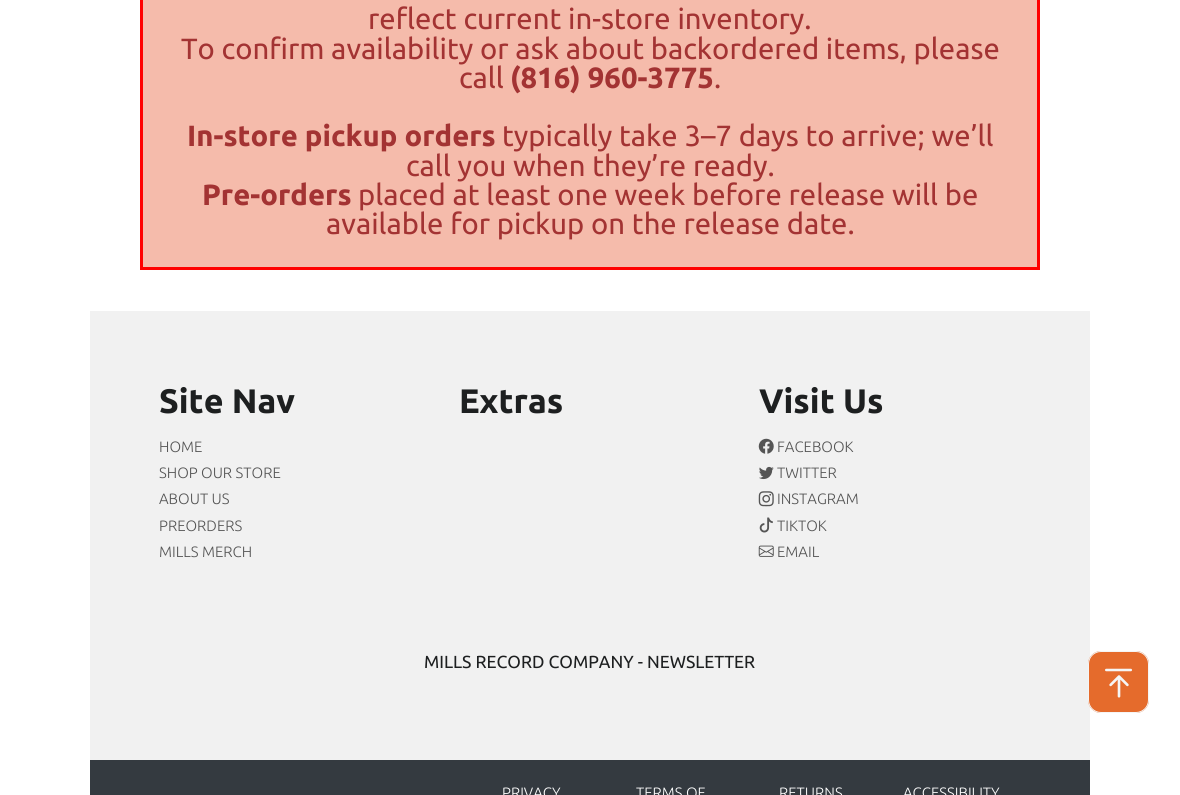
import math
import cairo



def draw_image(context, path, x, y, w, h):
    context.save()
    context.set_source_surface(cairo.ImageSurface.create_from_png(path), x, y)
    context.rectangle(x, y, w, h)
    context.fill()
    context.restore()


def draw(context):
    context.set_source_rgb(1, 1, 1)
    context.paint()
    context.set_source_rgb(245 / 255, 187 / 255, 171 / 255)
    context.rectangle(141.5, -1.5, 897, 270)
    context.fill_preserve()
    context.set_source_rgb(1, 0, 0)
    context.set_line_width(3)
    context.stroke()
    context.set_source_rgb(241 / 255, 241 / 255, 241 / 255)
    context.rectangle(90, 311, 1000, 449)
    context.fill()
    draw_image(context, "images/1.png", 758, 438, 16, 16)
    draw_image(context, "images/2.png", 759, 466, 15, 14)
    draw_image(context, "images/3.png", 758, 491, 16, 16)
    draw_image(context, "images/4.png", 759, 517, 14, 16)
    draw_image(context, "images/5.png", 758, 545, 16, 12)
    context.set_source_rgb(52 / 255, 58 / 255, 64 / 255)
    context.rectangle(90, 760, 1000, 35)
    context.fill()
    draw_image(context, "images/6.png", 1088, 651, 61, 62)
    context.select_font_face("Ubuntu")
    context.set_font_size(29.25)
    context.set_source_rgb(163 / 255, 51 / 255, 51 / 255)
    context.move_to(368, 29)
    context.show_text("reflect current in-store inventory.")
    context.move_to(181, 59)
    context.show_text("To confirm availability or ask about backordered items, please")
    context.move_to(459, 88)
    context.show_text("call")
    context.select_font_face("Ubuntu", cairo.FontSlant.NORMAL, cairo.FontWeight.BOLD)
    context.move_to(510, 88)
    context.show_text("(816) 960-3775")
    context.select_font_face("Ubuntu")
    context.move_to(714, 88)
    context.show_text(".")
    context.select_font_face("Ubuntu", cairo.FontSlant.NORMAL, cairo.FontWeight.BOLD)
    context.move_to(187, 146)
    context.show_text("In-store pickup orders")
    context.select_font_face("Ubuntu")
    context.move_to(502, 146)
    context.show_text("typically take 3–7 days to arrive; we’ll")
    context.move_to(406, 176)
    context.show_text("call you when they’re ready.")
    context.select_font_face("Ubuntu", cairo.FontSlant.NORMAL, cairo.FontWeight.BOLD)
    context.move_to(202, 205)
    context.show_text("Pre-orders")
    context.select_font_face("Ubuntu")
    context.move_to(358, 205)
    context.show_text("placed at least one week before release will be")
    context.move_to(326, 234)
    context.show_text("available for pickup on the release date.")
    context.select_font_face("Ubuntu", cairo.FontSlant.NORMAL, cairo.FontWeight.BOLD)
    context.set_font_size(34)
    context.set_source_rgb(29 / 255, 31 / 255, 32 / 255)
    context.move_to(159, 413)
    context.show_text("Site Nav")
    context.select_font_face("Ubuntu Light")
    context.set_font_size(15)
    context.set_source_rgb(85 / 255, 85 / 255, 85 / 255)
    context.move_to(159, 452)
    context.show_text("HOME")
    context.move_to(159, 478)
    context.show_text("SHOP OUR STORE")
    context.move_to(159, 504)
    context.show_text("ABOUT US")
    context.move_to(159, 531)
    context.show_text("PREORDERS")
    context.move_to(159, 557)
    context.show_text("MILLS MERCH")
    context.select_font_face("Ubuntu", cairo.FontSlant.NORMAL, cairo.FontWeight.BOLD)
    context.set_font_size(34)
    context.set_source_rgb(29 / 255, 31 / 255, 32 / 255)
    context.move_to(459, 413)
    context.show_text("Extras")
    context.move_to(759, 413)
    context.show_text("Visit Us")
    context.select_font_face("Ubuntu Light")
    context.set_font_size(15)
    context.set_source_rgb(85 / 255, 85 / 255, 85 / 255)
    context.move_to(777, 452)
    context.show_text("FACEBOOK")
    context.move_to(777, 478)
    context.show_text("TWITTER")
    context.move_to(777, 504)
    context.show_text("INSTAGRAM")
    context.move_to(777, 531)
    context.show_text("TIKTOK")
    context.move_to(777, 557)
    context.show_text("EMAIL")
    context.select_font_face("Ubuntu")
    context.set_font_size(17.5)
    context.set_source_rgb(29 / 255, 31 / 255, 32 / 255)
    context.move_to(424, 668)
    context.show_text("MILLS RECORD COMPANY - NEWSLETTER")
    context.select_font_face("Ubuntu Light")
    context.set_font_size(15)
    context.set_source_rgb(1, 1, 1)
    context.move_to(502, 798)
    context.show_text("PRIVACY")
    context.move_to(636, 798)
    context.show_text("TERMS OF")
    context.move_to(779, 798)
    context.show_text("RETURNS")
    context.move_to(903, 798)
    context.show_text("ACCESSIBILITY")


surface = cairo.ImageSurface(cairo.Format.RGB24, 1180, 795)
context = cairo.Context(surface)
options = cairo.FontOptions()
options.set_hint_metrics(cairo.HintMetrics.OFF)
options.set_hint_style(cairo.HintStyle.NONE)
context.set_font_options(options)
context.set_miter_limit(4)
draw(context)
surface.write_to_png("out.png")
